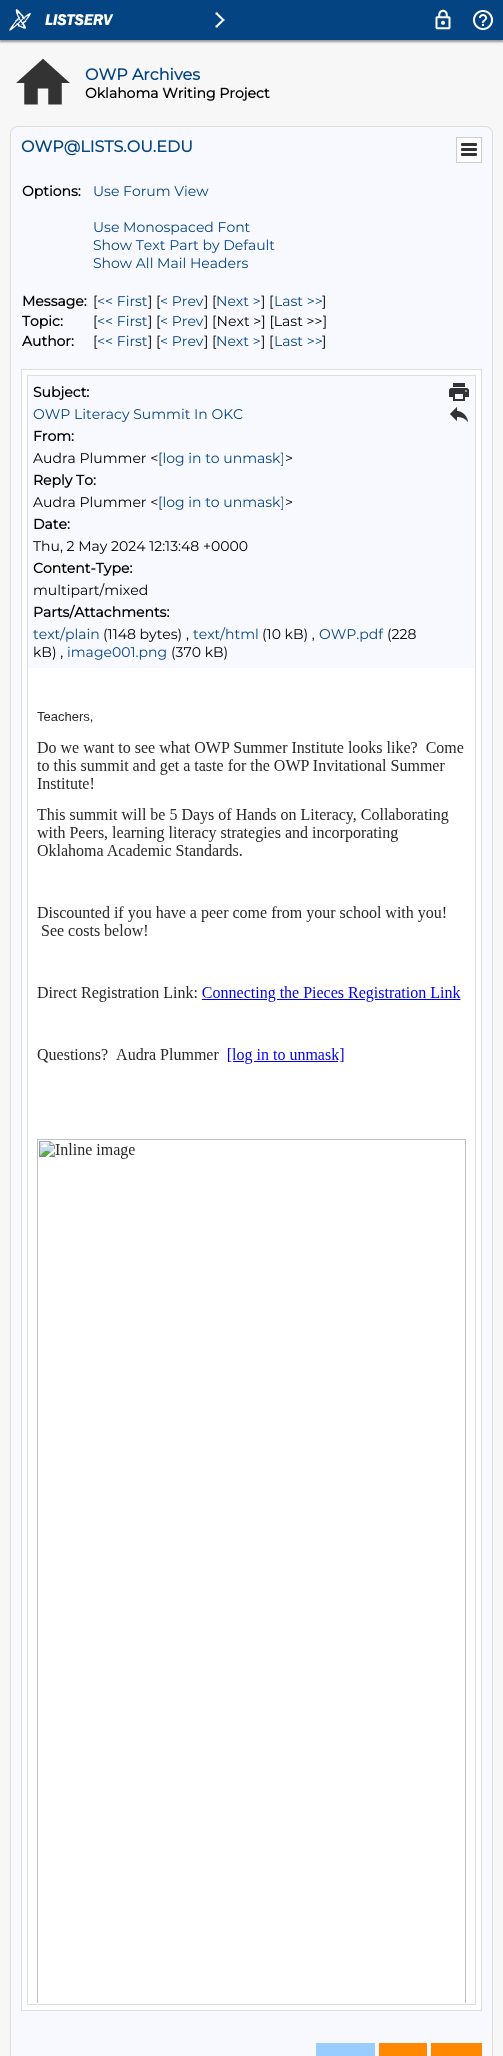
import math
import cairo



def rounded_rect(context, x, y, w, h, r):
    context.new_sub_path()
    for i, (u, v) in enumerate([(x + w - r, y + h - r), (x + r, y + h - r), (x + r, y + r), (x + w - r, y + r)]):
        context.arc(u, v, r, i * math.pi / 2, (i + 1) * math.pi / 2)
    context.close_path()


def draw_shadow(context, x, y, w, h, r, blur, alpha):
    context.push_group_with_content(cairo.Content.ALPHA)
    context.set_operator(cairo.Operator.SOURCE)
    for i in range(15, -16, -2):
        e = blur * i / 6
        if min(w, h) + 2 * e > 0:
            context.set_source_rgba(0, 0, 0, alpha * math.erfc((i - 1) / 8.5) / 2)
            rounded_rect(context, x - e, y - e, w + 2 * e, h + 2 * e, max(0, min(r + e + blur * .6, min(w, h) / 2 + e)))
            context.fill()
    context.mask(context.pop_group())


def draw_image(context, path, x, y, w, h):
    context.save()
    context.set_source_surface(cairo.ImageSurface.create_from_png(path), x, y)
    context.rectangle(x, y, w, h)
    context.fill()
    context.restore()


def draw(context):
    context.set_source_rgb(247 / 255, 247 / 255, 247 / 255)
    context.paint()
    context.set_source_rgb(153 / 255, 153 / 255, 153 / 255)
    draw_shadow(context, 0, 2, 503, 40, 0, 1, 1)
    context.set_source_rgb(5 / 255, 68 / 255, 131 / 255)
    context.rectangle(0, 0, 503, 40)
    context.fill()
    draw_image(context, "images/1.png", 9, 9, 22, 22)
    draw_image(context, "images/2.png", 45, 14, 69, 12)
    draw_image(context, "images/3.png", 215, 12, 10, 16)
    draw_image(context, "images/4.png", 435, 9, 16, 21)
    draw_image(context, "images/5.png", 473, 10, 20, 20)
    draw_image(context, "images/6.png", 16, 59, 54, 46)
    context.set_source_rgb(247 / 255, 249 / 255, 254 / 255)
    rounded_rect(context, 10.5, 126.5, 482, 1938, 7.5)
    context.fill_preserve()
    context.set_source_rgb(222 / 255, 222 / 255, 222 / 255)
    context.set_line_width(1)
    context.stroke()
    context.set_source_rgb(1, 1, 1)
    context.rectangle(456.5, 137.5, 25, 25)
    context.fill_preserve()
    context.set_source_rgb(204 / 255, 204 / 255, 204 / 255)
    context.stroke()
    draw_image(context, "images/7.png", 461, 143, 16, 13)
    context.rectangle(21.5, 369.5, 460, 1641)
    context.set_source_rgb(222 / 255, 222 / 255, 222 / 255)
    context.stroke()
    context.set_source_rgb(1, 1, 1)
    context.rectangle(22, 370, 459, 1640)
    context.fill()
    context.rectangle(27.5, 375.5, 448, 1629)
    context.set_source_rgb(222 / 255, 222 / 255, 222 / 255)
    context.stroke()
    context.set_source_rgb(247 / 255, 249 / 255, 254 / 255)
    context.rectangle(28, 376, 447, 292)
    context.fill()
    draw_image(context, "images/8.png", 449, 383, 20, 18)
    draw_image(context, "images/9.png", 450, 407, 18, 15)
    draw_image(context, "images/10.png", 37, 712, 429, 1291)
    context.set_source_rgb(153 / 255, 204 / 255, 1)
    context.rectangle(316, 2043, 59, 13)
    context.fill()
    context.set_source_rgb(1, 136 / 255, 0)
    context.rectangle(379, 2043, 48, 13)
    context.fill()
    context.rectangle(431, 2043, 51, 13)
    context.fill()
    context.select_font_face("Montserrat", cairo.FontSlant.NORMAL, cairo.FontWeight.BOLD)
    context.set_font_size(16)
    context.set_source_rgb(5 / 255, 68 / 255, 131 / 255)
    context.move_to(85, 80)
    context.show_text("OWP Archives")
    context.set_font_size(14)
    context.set_source_rgb(0, 0, 0)
    context.move_to(85, 98)
    context.show_text("Oklahoma Writing Project")
    context.set_font_size(16)
    context.set_source_rgb(5 / 255, 68 / 255, 131 / 255)
    context.move_to(21, 152)
    context.show_text("OWP@LISTS.OU.EDU")
    context.set_font_size(14)
    context.set_source_rgb(0, 0, 0)
    context.move_to(22, 196)
    context.show_text("Options:")
    context.select_font_face("Montserrat Thin")
    context.set_source_rgb(5 / 255, 68 / 255, 131 / 255)
    context.move_to(93, 196)
    context.show_text("Use Forum View")
    context.move_to(93, 232)
    context.show_text("Use Monospaced Font")
    context.move_to(93, 250)
    context.show_text("Show Text Part by Default")
    context.move_to(93, 268)
    context.show_text("Show All Mail Headers")
    context.select_font_face("Montserrat", cairo.FontSlant.NORMAL, cairo.FontWeight.BOLD)
    context.set_source_rgb(0, 0, 0)
    context.move_to(22, 306)
    context.show_text("Message:")
    context.select_font_face("Montserrat Thin")
    context.move_to(93, 306)
    context.show_text("[")
    context.set_source_rgb(5 / 255, 68 / 255, 131 / 255)
    context.move_to(97, 306)
    context.show_text("<< First")
    context.set_source_rgb(0, 0, 0)
    context.move_to(148, 306)
    context.show_text("] [")
    context.set_source_rgb(5 / 255, 68 / 255, 131 / 255)
    context.move_to(160, 306)
    context.show_text("< Prev")
    context.set_source_rgb(0, 0, 0)
    context.move_to(204, 306)
    context.show_text("] [")
    context.set_source_rgb(5 / 255, 68 / 255, 131 / 255)
    context.move_to(216, 306)
    context.show_text("Next >")
    context.set_source_rgb(0, 0, 0)
    context.move_to(261, 306)
    context.show_text("] [")
    context.set_source_rgb(5 / 255, 68 / 255, 131 / 255)
    context.move_to(274, 306)
    context.show_text("Last >>")
    context.set_source_rgb(0, 0, 0)
    context.move_to(322, 306)
    context.show_text("]")
    context.select_font_face("Montserrat", cairo.FontSlant.NORMAL, cairo.FontWeight.BOLD)
    context.move_to(22, 326)
    context.show_text("Topic:")
    context.select_font_face("Montserrat Thin")
    context.move_to(93, 326)
    context.show_text("[")
    context.set_source_rgb(5 / 255, 68 / 255, 131 / 255)
    context.move_to(97, 326)
    context.show_text("<< First")
    context.set_source_rgb(0, 0, 0)
    context.move_to(148, 326)
    context.show_text("] [")
    context.set_source_rgb(5 / 255, 68 / 255, 131 / 255)
    context.move_to(160, 326)
    context.show_text("< Prev")
    context.set_source_rgb(0, 0, 0)
    context.move_to(204, 326)
    context.show_text("] [Next >] [Last >>]")
    context.select_font_face("Montserrat", cairo.FontSlant.NORMAL, cairo.FontWeight.BOLD)
    context.move_to(22, 346)
    context.show_text("Author:")
    context.select_font_face("Montserrat Thin")
    context.move_to(93, 346)
    context.show_text("[")
    context.set_source_rgb(5 / 255, 68 / 255, 131 / 255)
    context.move_to(97, 346)
    context.show_text("<< First")
    context.set_source_rgb(0, 0, 0)
    context.move_to(148, 346)
    context.show_text("] [")
    context.set_source_rgb(5 / 255, 68 / 255, 131 / 255)
    context.move_to(160, 346)
    context.show_text("< Prev")
    context.set_source_rgb(0, 0, 0)
    context.move_to(204, 346)
    context.show_text("] [")
    context.set_source_rgb(5 / 255, 68 / 255, 131 / 255)
    context.move_to(216, 346)
    context.show_text("Next >")
    context.set_source_rgb(0, 0, 0)
    context.move_to(261, 346)
    context.show_text("] [")
    context.set_source_rgb(5 / 255, 68 / 255, 131 / 255)
    context.move_to(274, 346)
    context.show_text("Last >>")
    context.set_source_rgb(0, 0, 0)
    context.move_to(322, 346)
    context.show_text("]")
    context.select_font_face("Montserrat", cairo.FontSlant.NORMAL, cairo.FontWeight.BOLD)
    context.move_to(33, 397)
    context.show_text("Subject:")
    context.select_font_face("Montserrat Thin")
    context.set_source_rgb(5 / 255, 68 / 255, 131 / 255)
    context.move_to(33, 419)
    context.show_text("OWP Literacy Summit In OKC")
    context.select_font_face("Montserrat", cairo.FontSlant.NORMAL, cairo.FontWeight.BOLD)
    context.set_source_rgb(0, 0, 0)
    context.move_to(33, 441)
    context.show_text("From:")
    context.select_font_face("Montserrat Thin")
    context.move_to(33, 463)
    context.show_text("Audra Plummer <")
    context.set_source_rgb(5 / 255, 68 / 255, 131 / 255)
    context.move_to(158, 463)
    context.show_text("[log in to unmask]")
    context.set_source_rgb(0, 0, 0)
    context.move_to(285, 463)
    context.show_text(">")
    context.select_font_face("Montserrat", cairo.FontSlant.NORMAL, cairo.FontWeight.BOLD)
    context.move_to(33, 485)
    context.show_text("Reply To:")
    context.select_font_face("Montserrat Thin")
    context.move_to(33, 507)
    context.show_text("Audra Plummer <")
    context.set_source_rgb(5 / 255, 68 / 255, 131 / 255)
    context.move_to(158, 507)
    context.show_text("[log in to unmask]")
    context.set_source_rgb(0, 0, 0)
    context.move_to(285, 507)
    context.show_text(">")
    context.select_font_face("Montserrat", cairo.FontSlant.NORMAL, cairo.FontWeight.BOLD)
    context.move_to(33, 529)
    context.show_text("Date:")
    context.select_font_face("Montserrat Thin")
    context.move_to(33, 551)
    context.show_text("Thu, 2 May 2024 12:13:48 +0000")
    context.select_font_face("Montserrat", cairo.FontSlant.NORMAL, cairo.FontWeight.BOLD)
    context.move_to(33, 573)
    context.show_text("Content-Type:")
    context.select_font_face("Montserrat Thin")
    context.move_to(33, 595)
    context.show_text("multipart/mixed")
    context.select_font_face("Montserrat", cairo.FontSlant.NORMAL, cairo.FontWeight.BOLD)
    context.move_to(33, 617)
    context.show_text("Parts/Attachments:")
    context.select_font_face("Montserrat Thin")
    context.set_source_rgb(5 / 255, 68 / 255, 131 / 255)
    context.move_to(33, 639)
    context.show_text("text/plain")
    context.set_source_rgb(0, 0, 0)
    context.move_to(103, 639)
    context.show_text("(1148 bytes) ,")
    context.set_source_rgb(5 / 255, 68 / 255, 131 / 255)
    context.move_to(193, 639)
    context.show_text("text/html")
    context.set_source_rgb(0, 0, 0)
    context.move_to(262, 639)
    context.show_text("(10 kB) ,")
    context.set_source_rgb(5 / 255, 68 / 255, 131 / 255)
    context.move_to(319, 639)
    context.show_text("OWP.pdf")
    context.set_source_rgb(0, 0, 0)
    context.move_to(387, 639)
    context.show_text("(228")
    context.move_to(33, 657)
    context.show_text("kB) ,")
    context.set_source_rgb(5 / 255, 68 / 255, 131 / 255)
    context.move_to(67, 657)
    context.show_text("image001.png")
    context.set_source_rgb(0, 0, 0)
    context.move_to(171, 657)
    context.show_text("(370 kB)")


surface = cairo.ImageSurface(cairo.Format.RGB24, 503, 2056)
context = cairo.Context(surface)
options = cairo.FontOptions()
options.set_hint_metrics(cairo.HintMetrics.OFF)
options.set_hint_style(cairo.HintStyle.NONE)
context.set_font_options(options)
context.set_miter_limit(4)
draw(context)
surface.write_to_png("out.png")
